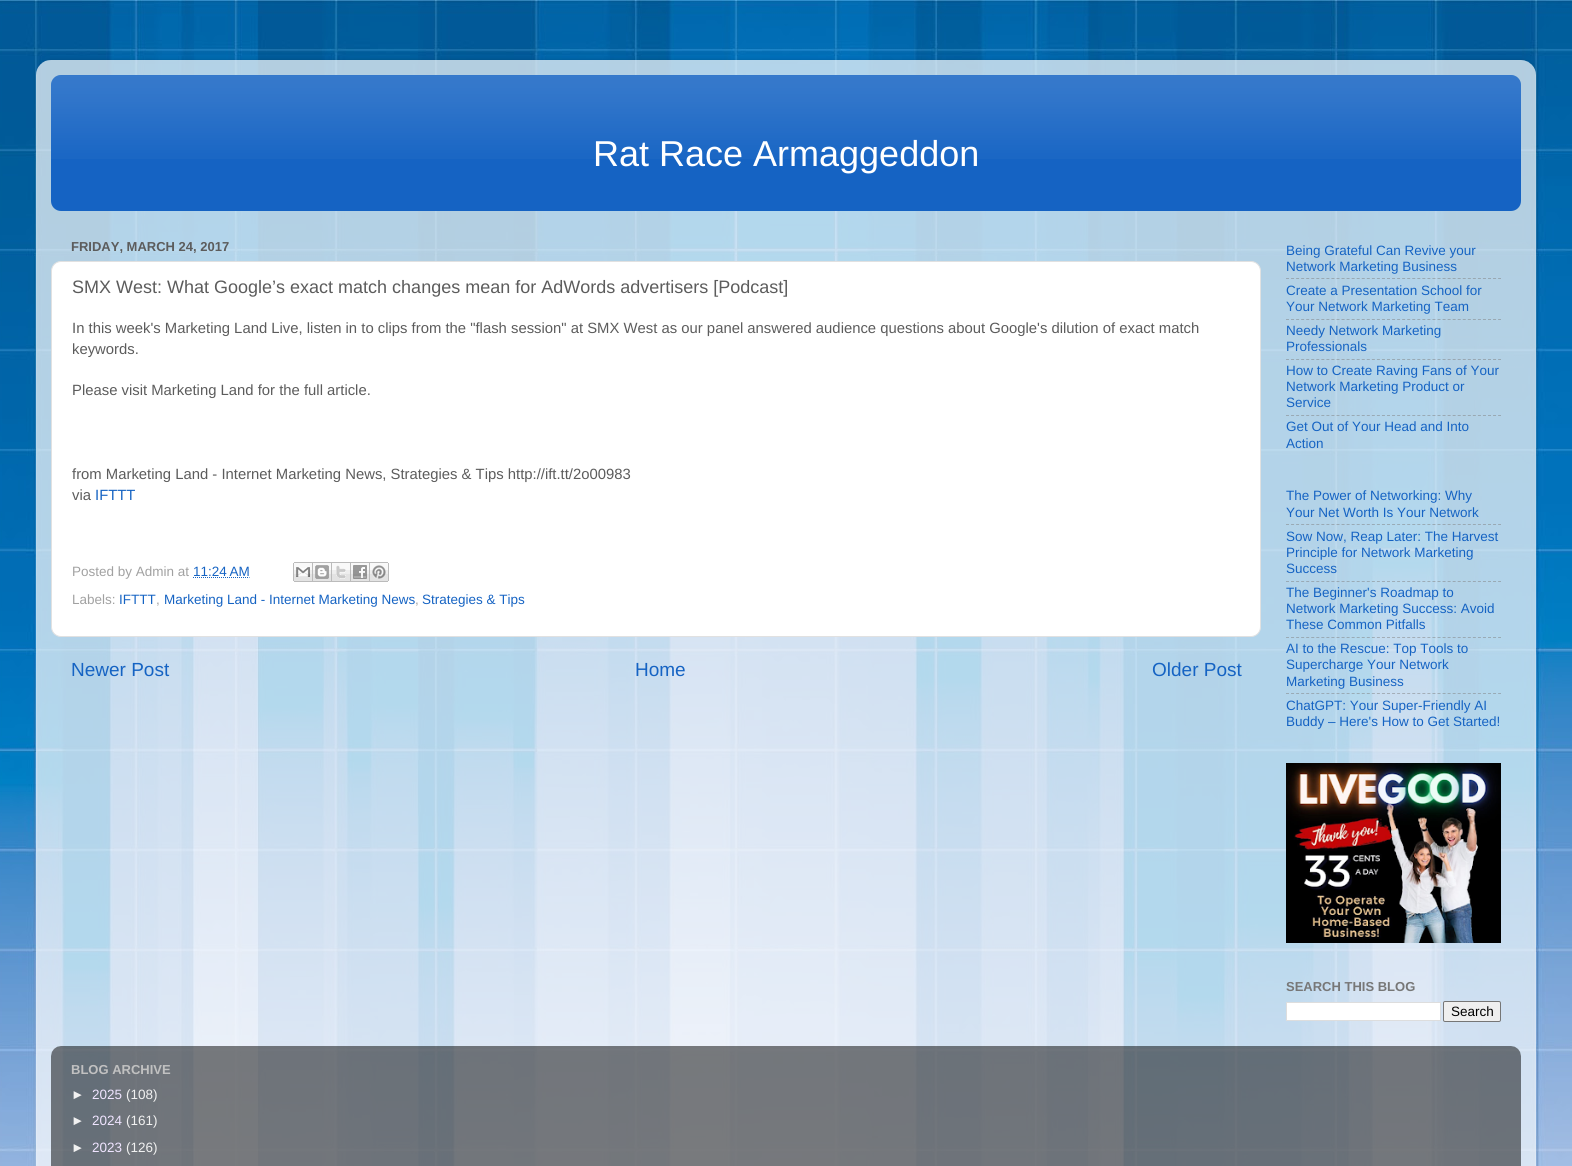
import math
import cairo



def rounded_rect(context, x, y, w, h, r):
    context.new_sub_path()
    for i, (u, v) in enumerate([(x + w - r, y + h - r), (x + r, y + h - r), (x + r, y + r), (x + w - r, y + r)]):
        context.arc(u, v, r, i * math.pi / 2, (i + 1) * math.pi / 2)
    context.close_path()


def draw_shadow(context, x, y, w, h, r, blur, alpha):
    context.push_group_with_content(cairo.Content.ALPHA)
    context.set_operator(cairo.Operator.SOURCE)
    for i in range(15, -16, -2):
        e = blur * i / 6
        if min(w, h) + 2 * e > 0:
            context.set_source_rgba(0, 0, 0, alpha * math.erfc((i - 1) / 8.5) / 2)
            rounded_rect(context, x - e, y - e, w + 2 * e, h + 2 * e, max(0, min(r + e + blur * .6, min(w, h) / 2 + e)))
            context.fill()
    context.mask(context.pop_group())


def draw_image(context, path, x, y, w, h):
    context.save()
    context.set_source_surface(cairo.ImageSurface.create_from_png(path), x, y)
    context.rectangle(x, y, w, h)
    context.fill()
    context.restore()


def draw(context):
    context.set_source_rgb(1, 1, 1)
    context.paint()
    draw_image(context, "images/1.png", 0, 0, 1572, 1166)
    context.save()
    context.set_fill_rule(cairo.FillRule.EVEN_ODD)
    context.new_path()
    context.move_to(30, 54)
    context.line_to(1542, 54)
    context.line_to(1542, 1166)
    context.line_to(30, 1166)
    context.close_path()
    context.move_to(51, 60)
    context.line_to(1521, 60)
    context.curve_to(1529.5, 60, 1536, 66.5, 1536, 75)
    context.line_to(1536, 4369)
    context.curve_to(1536, 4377.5, 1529.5, 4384, 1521, 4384)
    context.line_to(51, 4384)
    context.curve_to(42.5, 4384, 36, 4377.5, 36, 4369)
    context.line_to(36, 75)
    context.curve_to(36, 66.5, 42.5, 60, 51, 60)
    context.close_path()
    context.clip()
    context.set_source_rgb(0, 0, 0)
    draw_shadow(context, 36, 60, 1500, 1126, 15, 1.5, 0.15)
    context.restore()
    draw_image(context, "images/2.png", 36, 60, 1500, 1106)
    context.set_source_rgb(21 / 255, 99 / 255, 195 / 255)
    rounded_rect(context, 51, 75, 1470, 136, 10)
    context.fill()
    draw_image(context, "images/3.png", 51, 75, 1470, 84)
    context.set_source_rgb(1, 1, 1)
    rounded_rect(context, 51.5, 261.5, 1209, 375, 9.5)
    context.fill_preserve()
    context.set_source_rgb(225 / 255, 225 / 255, 225 / 255)
    context.set_line_width(1)
    context.stroke()
    context.new_path()
    context.move_to(193, 577.5)
    context.line_to(249.5, 577.5)
    context.set_source_rgb(21 / 255, 99 / 255, 195 / 255)
    context.set_dash([1, 1])
    context.stroke()
    draw_image(context, "images/4.png", 293, 562, 20, 20)
    draw_image(context, "images/5.png", 313, 562, 19, 20)
    draw_image(context, "images/6.png", 332, 562, 19, 20)
    draw_image(context, "images/7.png", 351, 562, 19, 20)
    draw_image(context, "images/8.png", 370, 562, 19, 20)
    context.new_path()
    context.move_to(1286, 278.5)
    context.line_to(1501, 278.5)
    context.set_source_rgba(128 / 255, 128 / 255, 128 / 255, 0.5)
    context.set_dash([3, 2.05])
    context.stroke()
    context.new_path()
    context.move_to(1286, 319.5)
    context.line_to(1501, 319.5)
    context.stroke()
    context.new_path()
    context.move_to(1286, 359.5)
    context.line_to(1501, 359.5)
    context.stroke()
    context.new_path()
    context.move_to(1286, 415.5)
    context.line_to(1501, 415.5)
    context.stroke()
    context.new_path()
    context.move_to(1286, 524.5)
    context.line_to(1501, 524.5)
    context.stroke()
    context.new_path()
    context.move_to(1286, 581.5)
    context.line_to(1501, 581.5)
    context.stroke()
    context.new_path()
    context.move_to(1286, 637.5)
    context.line_to(1501, 637.5)
    context.stroke()
    context.new_path()
    context.move_to(1286, 693.5)
    context.line_to(1501, 693.5)
    context.stroke()
    draw_image(context, "images/9.png", 1286, 763, 215, 180)
    context.set_source_rgb(1, 1, 1)
    context.rectangle(1286.5, 1002.5, 154, 18)
    context.fill_preserve()
    context.set_source_rgb(221 / 255, 221 / 255, 221 / 255)
    context.set_dash([])
    context.stroke()
    context.set_source_rgb(239 / 255, 239 / 255, 239 / 255)
    rounded_rect(context, 1443.5, 1001.5, 57, 20, 1.5)
    context.fill_preserve()
    context.set_source_rgb(118 / 255, 118 / 255, 118 / 255)
    context.stroke()
    draw_image(context, "images/10.png", 51, 1046, 1470, 120)
    context.select_font_face("Liberation Sans")
    context.set_font_size(36)
    context.set_source_rgb(1, 1, 1)
    context.move_to(593, 166)
    context.show_text("Rat Race Armaggeddon")
    context.select_font_face("Liberation Sans", cairo.FontSlant.NORMAL, cairo.FontWeight.BOLD)
    context.set_font_size(13)
    context.set_source_rgb(92 / 255, 92 / 255, 92 / 255)
    context.move_to(71, 251)
    context.show_text("FRIDAY, MARCH 24, 2017")
    context.select_font_face("Liberation Sans")
    context.set_font_size(18)
    context.move_to(72, 293)
    context.show_text("SMX West: What Google’s exact match changes mean for AdWords advertisers [Podcast]")
    context.set_font_size(14.85)
    context.move_to(72, 333)
    context.show_text("In this week's Marketing Land Live, listen in to clips from the \"flash session\" at SMX West as our panel answered audience questions about Google's dilution of exact match")
    context.move_to(72, 354)
    context.show_text("keywords.")
    context.move_to(72, 395)
    context.show_text("Please visit Marketing Land for the full article.")
    context.move_to(72, 479)
    context.show_text("from Marketing Land - Internet Marketing News, Strategies & Tips http://ift.tt/2o00983")
    context.move_to(72, 500)
    context.show_text("via")
    context.set_source_rgb(21 / 255, 99 / 255, 195 / 255)
    context.move_to(95, 500)
    context.show_text("IFTTT")
    context.set_font_size(13.5)
    context.set_source_rgb(161 / 255, 161 / 255, 161 / 255)
    context.move_to(72, 576)
    context.show_text("Posted by Admin at")
    context.set_source_rgb(21 / 255, 99 / 255, 195 / 255)
    context.move_to(193, 576)
    context.show_text("11:24 AM")
    context.set_source_rgb(161 / 255, 161 / 255, 161 / 255)
    context.move_to(72, 604)
    context.show_text("Labels:")
    context.set_source_rgb(21 / 255, 99 / 255, 195 / 255)
    context.move_to(119, 604)
    context.show_text("IFTTT")
    context.set_source_rgb(161 / 255, 161 / 255, 161 / 255)
    context.move_to(156, 604)
    context.show_text(",")
    context.set_source_rgb(21 / 255, 99 / 255, 195 / 255)
    context.move_to(164, 604)
    context.show_text("Marketing Land - Internet Marketing News")
    context.set_source_rgb(161 / 255, 161 / 255, 161 / 255)
    context.move_to(415, 604)
    context.show_text(",")
    context.set_source_rgb(21 / 255, 99 / 255, 195 / 255)
    context.move_to(422, 604)
    context.show_text("Strategies & Tips")
    context.set_font_size(19)
    context.move_to(71, 676)
    context.show_text("Newer Post")
    context.move_to(635, 676)
    context.show_text("Home")
    context.move_to(1152, 676)
    context.show_text("Older Post")
    context.set_font_size(13.5)
    context.move_to(1286, 255)
    context.show_text("Being Grateful Can Revive your")
    context.move_to(1286, 271)
    context.show_text("Network Marketing Business")
    context.move_to(1286, 295)
    context.show_text("Create a Presentation School for")
    context.move_to(1286, 311)
    context.show_text("Your Network Marketing Team")
    context.move_to(1286, 335)
    context.show_text("Needy Network Marketing")
    context.move_to(1286, 351)
    context.show_text("Professionals")
    context.move_to(1286, 375)
    context.show_text("How to Create Raving Fans of Your")
    context.move_to(1286, 391)
    context.show_text("Network Marketing Product or")
    context.move_to(1286, 407)
    context.show_text("Service")
    context.move_to(1286, 431)
    context.show_text("Get Out of Your Head and Into")
    context.move_to(1286, 448)
    context.show_text("Action")
    context.move_to(1286, 500)
    context.show_text("The Power of Networking: Why")
    context.move_to(1286, 517)
    context.show_text("Your Net Worth Is Your Network")
    context.move_to(1286, 541)
    context.show_text("Sow Now, Reap Later: The Harvest")
    context.move_to(1286, 557)
    context.show_text("Principle for Network Marketing")
    context.move_to(1286, 573)
    context.show_text("Success")
    context.move_to(1286, 597)
    context.show_text("The Beginner's Roadmap to")
    context.move_to(1286, 613)
    context.show_text("Network Marketing Success: Avoid")
    context.move_to(1286, 629)
    context.show_text("These Common Pitfalls")
    context.move_to(1286, 653)
    context.show_text("AI to the Rescue: Top Tools to")
    context.move_to(1286, 669)
    context.show_text("Supercharge Your Network")
    context.move_to(1286, 686)
    context.show_text("Marketing Business")
    context.move_to(1286, 710)
    context.show_text("ChatGPT: Your Super-Friendly AI")
    context.move_to(1286, 726)
    context.show_text("Buddy – Here's How to Get Started!")
    context.select_font_face("Liberation Sans", cairo.FontSlant.NORMAL, cairo.FontWeight.BOLD)
    context.set_font_size(13)
    context.set_source_rgb(119 / 255, 119 / 255, 119 / 255)
    context.move_to(1286, 991)
    context.show_text("SEARCH THIS BLOG")
    context.select_font_face("Liberation Sans")
    context.set_font_size(13.5)
    context.set_source_rgb(0, 0, 0)
    context.move_to(1451, 1016)
    context.show_text("Search")
    context.select_font_face("Liberation Sans", cairo.FontSlant.NORMAL, cairo.FontWeight.BOLD)
    context.set_font_size(13)
    context.set_source_rgb(193 / 255, 193 / 255, 193 / 255)
    context.move_to(71, 1074)
    context.show_text("BLOG ARCHIVE")
    context.select_font_face("Liberation Sans")
    context.set_font_size(13.5)
    context.set_source_rgb(241 / 255, 241 / 255, 241 / 255)
    context.move_to(71, 1099)
    context.show_text("►")
    context.set_source_rgb(239 / 255, 228 / 255, 1)
    context.move_to(92, 1099)
    context.show_text("2025")
    context.set_source_rgb(241 / 255, 241 / 255, 241 / 255)
    context.move_to(126, 1099)
    context.show_text("(108)")
    context.move_to(71, 1125)
    context.show_text("►")
    context.set_source_rgb(239 / 255, 228 / 255, 1)
    context.move_to(92, 1125)
    context.show_text("2024")
    context.set_source_rgb(241 / 255, 241 / 255, 241 / 255)
    context.move_to(126, 1125)
    context.show_text("(161)")
    context.move_to(71, 1152)
    context.show_text("►")
    context.set_source_rgb(239 / 255, 228 / 255, 1)
    context.move_to(92, 1152)
    context.show_text("2023")
    context.set_source_rgb(241 / 255, 241 / 255, 241 / 255)
    context.move_to(126, 1152)
    context.show_text("(126)")


surface = cairo.ImageSurface(cairo.Format.RGB24, 1572, 1166)
context = cairo.Context(surface)
options = cairo.FontOptions()
options.set_hint_metrics(cairo.HintMetrics.OFF)
options.set_hint_style(cairo.HintStyle.NONE)
context.set_font_options(options)
context.set_miter_limit(4)
draw(context)
surface.write_to_png("out.png")
